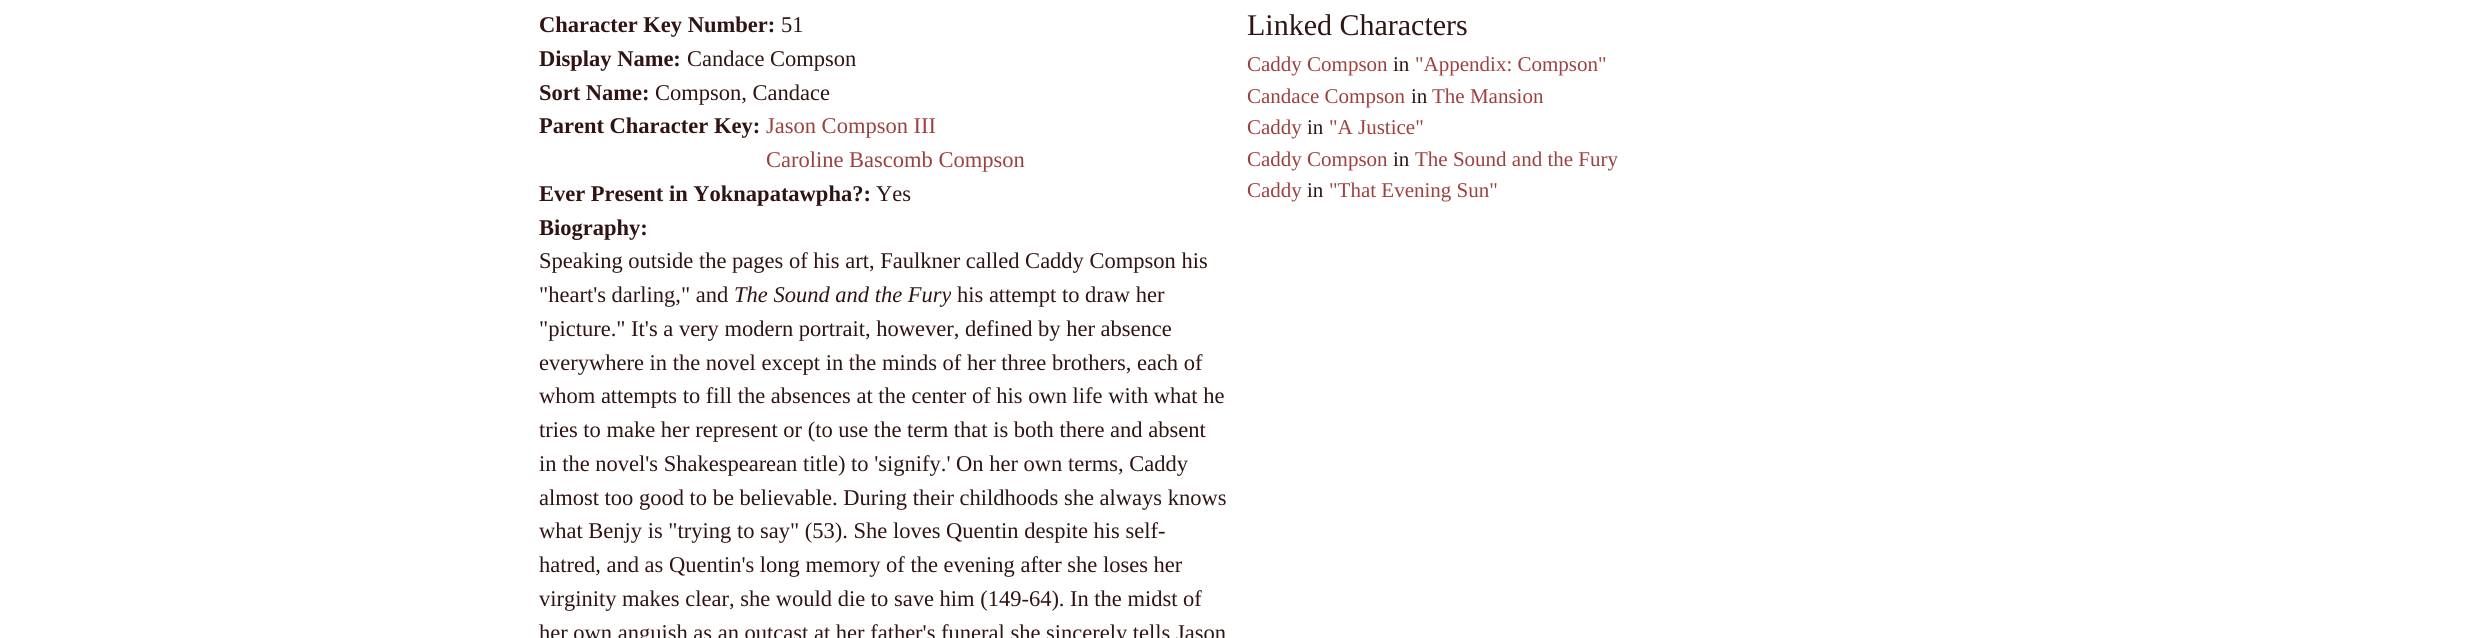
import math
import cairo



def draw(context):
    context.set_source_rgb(1, 1, 1)
    context.paint()
    context.select_font_face("Liberation Serif", cairo.FontSlant.NORMAL, cairo.FontWeight.BOLD)
    context.set_font_size(22.5)
    context.set_source_rgb(48 / 255, 19 / 255, 19 / 255)
    context.move_to(539, 32)
    context.show_text("Character Key Number:")
    context.select_font_face("Liberation Serif")
    context.move_to(781, 32)
    context.show_text("51")
    context.select_font_face("Liberation Serif", cairo.FontSlant.NORMAL, cairo.FontWeight.BOLD)
    context.move_to(539, 66)
    context.show_text("Display Name:")
    context.select_font_face("Liberation Serif")
    context.move_to(687, 66)
    context.show_text("Candace Compson")
    context.select_font_face("Liberation Serif", cairo.FontSlant.NORMAL, cairo.FontWeight.BOLD)
    context.move_to(539, 100)
    context.show_text("Sort Name:")
    context.select_font_face("Liberation Serif")
    context.move_to(655, 100)
    context.show_text("Compson, Candace")
    context.select_font_face("Liberation Serif", cairo.FontSlant.NORMAL, cairo.FontWeight.BOLD)
    context.move_to(539, 133)
    context.show_text("Parent Character Key:")
    context.select_font_face("Liberation Serif")
    context.set_source_rgb(157 / 255, 64 / 255, 64 / 255)
    context.move_to(766, 133)
    context.show_text("Jason Compson III")
    context.move_to(766, 167)
    context.show_text("Caroline Bascomb Compson")
    context.select_font_face("Liberation Serif", cairo.FontSlant.NORMAL, cairo.FontWeight.BOLD)
    context.set_source_rgb(48 / 255, 19 / 255, 19 / 255)
    context.move_to(539, 201)
    context.show_text("Ever Present in Yoknapatawpha?:")
    context.select_font_face("Liberation Serif")
    context.move_to(876, 201)
    context.show_text("Yes")
    context.select_font_face("Liberation Serif", cairo.FontSlant.NORMAL, cairo.FontWeight.BOLD)
    context.move_to(539, 235)
    context.show_text("Biography:")
    context.select_font_face("Liberation Serif")
    context.move_to(539, 268)
    context.show_text("Speaking outside the pages of his art, Faulkner called Caddy Compson his")
    context.move_to(539, 302)
    context.show_text("\"heart's darling,\" and")
    context.select_font_face("Liberation Serif", cairo.FontSlant.ITALIC)
    context.move_to(734, 302)
    context.show_text("The Sound and the Fury")
    context.select_font_face("Liberation Serif")
    context.move_to(957, 302)
    context.show_text("his attempt to draw her")
    context.move_to(539, 336)
    context.show_text("\"picture.\" It's a very modern portrait, however, defined by her absence")
    context.move_to(539, 370)
    context.show_text("everywhere in the novel except in the minds of her three brothers, each of")
    context.move_to(539, 403)
    context.show_text("whom attempts to fill the absences at the center of his own life with what he")
    context.move_to(539, 437)
    context.show_text("tries to make her represent or (to use the term that is both there and absent")
    context.move_to(539, 471)
    context.show_text("in the novel's Shakespearean title) to 'signify.' On her own terms, Caddy")
    context.move_to(539, 505)
    context.show_text("almost too good to be believable. During their childhoods she always knows")
    context.move_to(539, 538)
    context.show_text("what Benjy is \"trying to say\" (53). She loves Quentin despite his self-")
    context.move_to(539, 572)
    context.show_text("hatred, and as Quentin's long memory of the evening after she loses her")
    context.move_to(539, 606)
    context.show_text("virginity makes clear, she would die to save him (149-64).")
    context.move_to(1070, 606)
    context.show_text("In the midst of")
    context.move_to(539, 640)
    context.show_text("her own anguish as an outcast at her father's funeral she sincerely tells Jason")
    context.set_font_size(30)
    context.move_to(1247, 35)
    context.show_text("Linked Characters")
    context.set_font_size(21)
    context.set_source_rgb(157 / 255, 64 / 255, 64 / 255)
    context.move_to(1247, 71)
    context.show_text("Caddy Compson")
    context.set_source_rgb(48 / 255, 19 / 255, 19 / 255)
    context.move_to(1393, 71)
    context.show_text("in")
    context.set_source_rgb(157 / 255, 64 / 255, 64 / 255)
    context.move_to(1415, 71)
    context.show_text("\"Appendix: Compson\"")
    context.move_to(1247, 103)
    context.show_text("Candace Compson")
    context.set_source_rgb(48 / 255, 19 / 255, 19 / 255)
    context.move_to(1411, 103)
    context.show_text("in")
    context.set_source_rgb(157 / 255, 64 / 255, 64 / 255)
    context.move_to(1432, 103)
    context.show_text("The Mansion")
    context.move_to(1247, 134)
    context.show_text("Caddy")
    context.set_source_rgb(48 / 255, 19 / 255, 19 / 255)
    context.move_to(1307, 134)
    context.show_text("in")
    context.set_source_rgb(157 / 255, 64 / 255, 64 / 255)
    context.move_to(1329, 134)
    context.show_text("\"A Justice\"")
    context.move_to(1247, 166)
    context.show_text("Caddy Compson")
    context.set_source_rgb(48 / 255, 19 / 255, 19 / 255)
    context.move_to(1393, 166)
    context.show_text("in")
    context.set_source_rgb(157 / 255, 64 / 255, 64 / 255)
    context.move_to(1415, 166)
    context.show_text("The Sound and the Fury")
    context.move_to(1247, 197)
    context.show_text("Caddy")
    context.set_source_rgb(48 / 255, 19 / 255, 19 / 255)
    context.move_to(1307, 197)
    context.show_text("in")
    context.set_source_rgb(157 / 255, 64 / 255, 64 / 255)
    context.move_to(1329, 197)
    context.show_text("\"That Evening Sun\"")


surface = cairo.ImageSurface(cairo.Format.RGB24, 2473, 638)
context = cairo.Context(surface)
options = cairo.FontOptions()
options.set_hint_metrics(cairo.HintMetrics.OFF)
options.set_hint_style(cairo.HintStyle.NONE)
context.set_font_options(options)
context.set_miter_limit(4)
draw(context)
surface.write_to_png("out.png")
